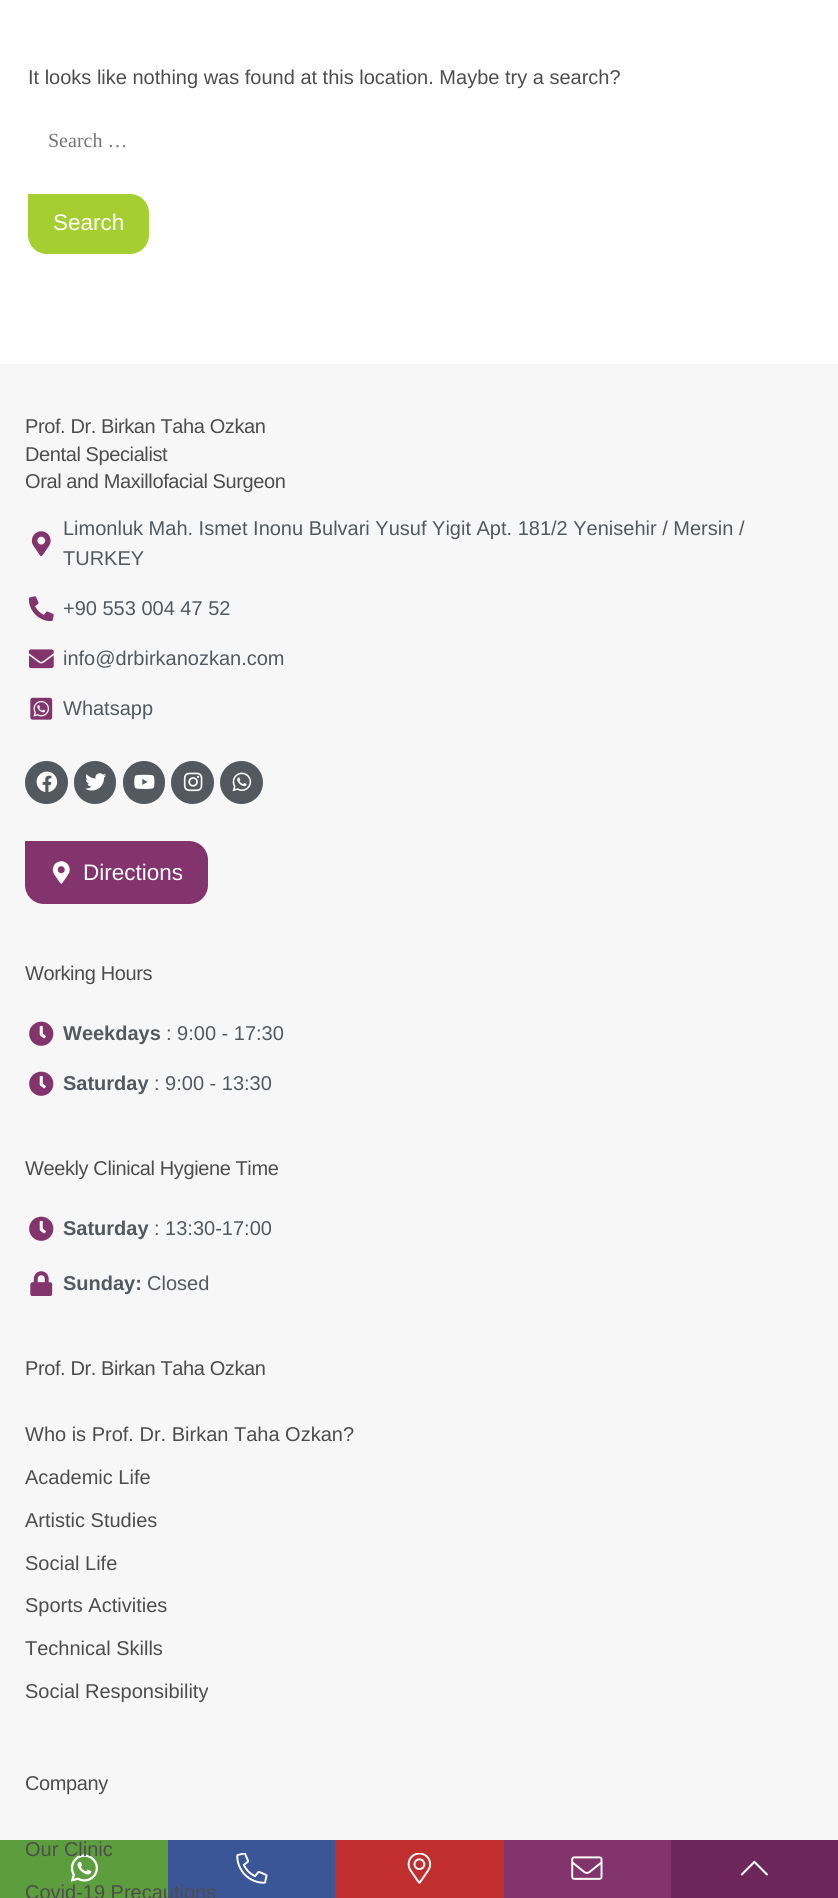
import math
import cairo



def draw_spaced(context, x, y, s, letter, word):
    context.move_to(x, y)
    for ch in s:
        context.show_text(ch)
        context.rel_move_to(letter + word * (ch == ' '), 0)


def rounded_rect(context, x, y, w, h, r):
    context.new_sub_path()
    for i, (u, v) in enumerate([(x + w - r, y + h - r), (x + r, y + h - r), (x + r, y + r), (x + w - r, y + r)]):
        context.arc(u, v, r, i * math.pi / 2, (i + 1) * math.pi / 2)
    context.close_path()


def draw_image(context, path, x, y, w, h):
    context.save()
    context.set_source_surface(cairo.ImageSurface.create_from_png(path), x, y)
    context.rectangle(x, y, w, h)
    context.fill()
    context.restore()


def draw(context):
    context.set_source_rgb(1, 1, 1)
    context.paint()
    context.set_source_rgb(165 / 255, 206 / 255, 49 / 255)
    context.new_path()
    context.move_to(28, 194)
    context.line_to(130, 194)
    context.curve_to(140.5, 194, 149, 202.5, 149, 213)
    context.line_to(149, 235)
    context.curve_to(149, 245.5, 140.5, 254, 130, 254)
    context.line_to(47, 254)
    context.curve_to(36.5, 254, 28, 245.5, 28, 235)
    context.close_path()
    context.fill()
    context.set_source_rgb(247 / 255, 247 / 255, 247 / 255)
    context.rectangle(0, 364, 838, 1476)
    context.fill()
    draw_image(context, "images/1.png", 31, 531, 20, 25)
    draw_image(context, "images/2.png", 29, 596, 25, 25)
    draw_image(context, "images/3.png", 29, 649, 25, 20)
    draw_image(context, "images/4.png", 30, 697, 23, 23)
    context.set_source_rgb(84 / 255, 89 / 255, 95 / 255)
    context.arc(46.5, 782.5, 21.5, 0, 2 * math.pi)
    context.fill()
    draw_image(context, "images/5.png", 36, 771, 22, 21)
    rounded_rect(context, 74, 761, 42, 43, 21)
    context.fill()
    draw_image(context, "images/6.png", 85, 773, 21, 18)
    rounded_rect(context, 123, 761, 42, 43, 21)
    context.fill()
    draw_image(context, "images/7.png", 134, 774, 21, 15)
    context.arc(192.5, 782.5, 21.5, 0, 2 * math.pi)
    context.fill()
    draw_image(context, "images/8.png", 183, 772, 20, 20)
    context.arc(241.5, 782.5, 21.5, 0, 2 * math.pi)
    context.fill()
    draw_image(context, "images/9.png", 232, 772, 20, 20)
    context.set_source_rgb(131 / 255, 52 / 255, 109 / 255)
    context.new_path()
    context.move_to(25, 841)
    context.line_to(189, 841)
    context.curve_to(199.5, 841, 208, 849.5, 208, 860)
    context.line_to(208, 885)
    context.curve_to(208, 895.5, 199.5, 904, 189, 904)
    context.line_to(44, 904)
    context.curve_to(33.5, 904, 25, 895.5, 25, 885)
    context.close_path()
    context.fill()
    draw_image(context, "images/10.png", 52, 861, 18, 23)
    draw_image(context, "images/11.png", 29, 1021, 25, 25)
    draw_image(context, "images/11.png", 29, 1071, 25, 25)
    draw_image(context, "images/11.png", 29, 1216, 25, 25)
    draw_image(context, "images/12.png", 30, 1271, 23, 25)
    context.rectangle(504, 1840, 167, 58)
    context.fill()
    context.set_source_rgb(92 / 255, 157 / 255, 61 / 255)
    context.rectangle(0, 1840, 168, 58)
    context.fill()
    draw_image(context, "images/13.png", 70, 1854, 28, 28)
    context.set_source_rgb(58 / 255, 86 / 255, 150 / 255)
    context.rectangle(168, 1840, 167, 58)
    context.fill()
    draw_image(context, "images/14.png", 236, 1853, 32, 31)
    context.set_source_rgb(192 / 255, 46 / 255, 46 / 255)
    context.rectangle(335, 1840, 169, 58)
    context.fill()
    draw_image(context, "images/15.png", 407, 1853, 25, 31)
    draw_image(context, "images/16.png", 571, 1856, 32, 24)
    context.set_source_rgb(109 / 255, 38 / 255, 89 / 255)
    context.rectangle(671, 1840, 167, 58)
    context.fill()
    draw_image(context, "images/17.png", 740, 1860, 28, 16)
    context.select_font_face("Liberation Sans")
    context.set_font_size(20)
    context.set_source_rgb(77 / 255, 77 / 255, 77 / 255)
    context.move_to(28, 84)
    context.show_text("It looks like nothing was found at this location. Maybe try a search?")
    context.select_font_face("Liberation Serif")
    context.set_source_rgb(117 / 255, 117 / 255, 117 / 255)
    context.move_to(48, 147)
    context.show_text("Search …")
    context.select_font_face("Liberation Sans")
    context.set_font_size(22.5)
    context.set_source_rgb(1, 1, 1)
    context.move_to(53, 230)
    context.show_text("Search")
    context.set_font_size(20)
    context.set_source_rgb(77 / 255, 77 / 255, 77 / 255)
    draw_spaced(context, 25, 433, "Prof. Dr. Birkan Taha Ozkan", -0.4, 0)
    draw_spaced(context, 25, 461, "Dental Specialist", -0.4, 0)
    draw_spaced(context, 25, 488, "Oral and Maxillofacial Surgeon", -0.4, 0)
    context.set_source_rgb(84 / 255, 89 / 255, 95 / 255)
    context.move_to(63, 535)
    context.show_text("Limonluk Mah. Ismet Inonu Bulvari Yusuf Yigit Apt. 181/2 Yenisehir / Mersin /")
    context.move_to(63, 565)
    context.show_text("TURKEY")
    context.move_to(63, 615)
    context.show_text("+90 553 004 47 52")
    context.move_to(63, 665)
    context.show_text("info@drbirkanozkan.com")
    context.move_to(63, 715)
    context.show_text("Whatsapp")
    context.set_font_size(22.5)
    context.set_source_rgb(1, 1, 1)
    context.move_to(83, 880)
    context.show_text("Directions")
    context.set_font_size(20)
    context.set_source_rgb(77 / 255, 77 / 255, 77 / 255)
    draw_spaced(context, 25, 980, "Working Hours", -0.4, 0)
    context.select_font_face("Liberation Sans", cairo.FontSlant.NORMAL, cairo.FontWeight.BOLD)
    context.set_source_rgb(84 / 255, 89 / 255, 95 / 255)
    context.move_to(63, 1040)
    context.show_text("Weekdays")
    context.select_font_face("Liberation Sans")
    context.move_to(166, 1040)
    context.show_text(": 9:00 - 17:30")
    context.select_font_face("Liberation Sans", cairo.FontSlant.NORMAL, cairo.FontWeight.BOLD)
    context.move_to(63, 1090)
    context.show_text("Saturday")
    context.select_font_face("Liberation Sans")
    context.move_to(154, 1090)
    context.show_text(": 9:00 - 13:30")
    context.set_source_rgb(77 / 255, 77 / 255, 77 / 255)
    draw_spaced(context, 25, 1175, "Weekly Clinical Hygiene Time", -0.4, 0)
    context.select_font_face("Liberation Sans", cairo.FontSlant.NORMAL, cairo.FontWeight.BOLD)
    context.set_source_rgb(84 / 255, 89 / 255, 95 / 255)
    context.move_to(63, 1235)
    context.show_text("Saturday")
    context.select_font_face("Liberation Sans")
    context.move_to(154, 1235)
    context.show_text(": 13:30-17:00")
    context.select_font_face("Liberation Sans", cairo.FontSlant.NORMAL, cairo.FontWeight.BOLD)
    context.move_to(63, 1290)
    context.show_text("Sunday:")
    context.select_font_face("Liberation Sans")
    context.move_to(147, 1290)
    context.show_text("Closed")
    context.set_source_rgb(77 / 255, 77 / 255, 77 / 255)
    draw_spaced(context, 25, 1375, "Prof. Dr. Birkan Taha Ozkan", -0.4, 0)
    context.move_to(25, 1441)
    context.show_text("Who is Prof. Dr. Birkan Taha Ozkan?")
    context.move_to(25, 1484)
    context.show_text("Academic Life")
    context.move_to(25, 1527)
    context.show_text("Artistic Studies")
    context.move_to(25, 1570)
    context.show_text("Social Life")
    context.move_to(25, 1612)
    context.show_text("Sports Activities")
    context.move_to(25, 1655)
    context.show_text("Technical Skills")
    context.move_to(25, 1698)
    context.show_text("Social Responsibility")
    draw_spaced(context, 25, 1790, "Company", -0.4, 0)
    context.move_to(25, 1856)
    context.show_text("Our Clinic")
    context.move_to(25, 1899)
    context.show_text("Covid-19 Precautions")


surface = cairo.ImageSurface(cairo.Format.RGB24, 838, 1898)
context = cairo.Context(surface)
options = cairo.FontOptions()
options.set_hint_metrics(cairo.HintMetrics.OFF)
options.set_hint_style(cairo.HintStyle.NONE)
context.set_font_options(options)
context.set_miter_limit(4)
draw(context)
surface.write_to_png("out.png")
